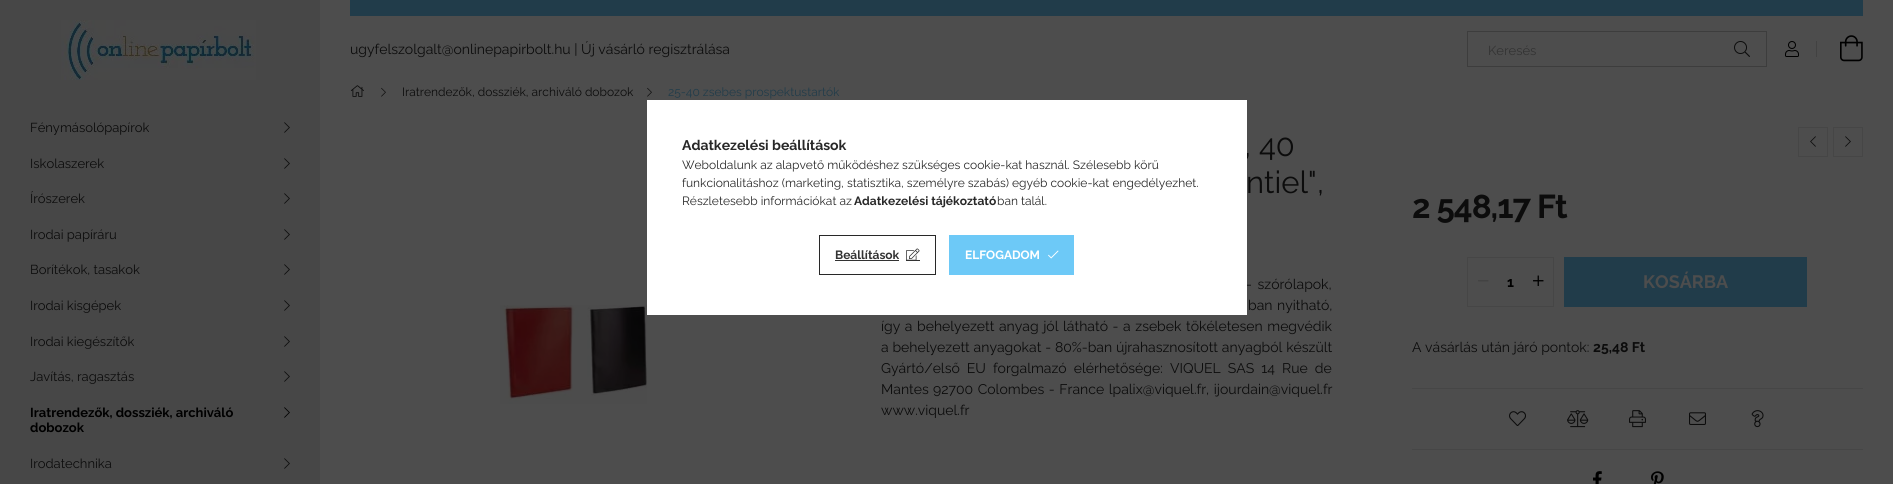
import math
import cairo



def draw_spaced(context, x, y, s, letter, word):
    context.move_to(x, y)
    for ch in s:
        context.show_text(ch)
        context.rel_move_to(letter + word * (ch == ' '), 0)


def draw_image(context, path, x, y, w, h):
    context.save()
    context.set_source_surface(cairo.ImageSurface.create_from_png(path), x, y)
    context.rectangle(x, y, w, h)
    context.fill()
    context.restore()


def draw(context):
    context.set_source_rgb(77 / 255, 77 / 255, 77 / 255)
    context.paint()
    context.set_source_rgb(71 / 255, 71 / 255, 71 / 255)
    context.rectangle(0, 0, 320, 484)
    context.fill()
    draw_image(context, "images/1.png", 61, 20, 195, 60)
    draw_image(context, "images/2.png", 284, 122, 6, 11)
    draw_image(context, "images/2.png", 284, 158, 6, 11)
    draw_image(context, "images/2.png", 284, 193, 6, 11)
    draw_image(context, "images/2.png", 284, 229, 6, 11)
    draw_image(context, "images/2.png", 284, 264, 6, 11)
    draw_image(context, "images/2.png", 284, 300, 6, 11)
    draw_image(context, "images/2.png", 284, 336, 6, 11)
    draw_image(context, "images/2.png", 284, 371, 6, 11)
    draw_image(context, "images/3.png", 284, 407, 6, 11)
    draw_image(context, "images/2.png", 284, 458, 6, 11)
    context.set_source_rgb(33 / 255, 60 / 255, 74 / 255)
    context.rectangle(350, 0, 1513, 16)
    context.fill()
    context.rectangle(1467.5, 31.5, 299, 35)
    context.set_source_rgb(61 / 255, 61 / 255, 61 / 255)
    context.set_line_width(1)
    context.stroke()
    draw_image(context, "images/4.png", 1734, 41, 16, 16)
    draw_image(context, "images/5.png", 1785, 41, 14, 16)
    context.set_source_rgb(66 / 255, 66 / 255, 66 / 255)
    context.rectangle(1816, 41, 1, 16)
    context.fill()
    draw_image(context, "images/6.png", 1840, 35, 23, 27)
    draw_image(context, "images/7.png", 350, 85, 14, 12)
    draw_image(context, "images/8.png", 381, 87, 5, 10)
    draw_image(context, "images/8.png", 647, 87, 5, 10)
    draw_image(context, "images/9.png", 500, 305, 147, 99)
    context.rectangle(1798.5, 127.5, 29, 29)
    context.set_source_rgb(70 / 255, 70 / 255, 70 / 255)
    context.stroke()
    draw_image(context, "images/10.png", 1810, 136, 6, 11)
    context.rectangle(1833.5, 127.5, 29, 29)
    context.stroke()
    draw_image(context, "images/11.png", 1845, 136, 6, 11)
    context.rectangle(1467.5, 257.5, 86, 49)
    context.stroke()
    draw_image(context, "images/12.png", 1478, 280, 11, 2)
    draw_image(context, "images/13.png", 1533, 275, 11, 11)
    context.set_source_rgb(33 / 255, 60 / 255, 74 / 255)
    context.rectangle(1564, 257, 243, 50)
    context.fill()
    context.set_source_rgb(70 / 255, 70 / 255, 70 / 255)
    context.rectangle(1412, 388, 451, 1)
    context.fill()
    draw_image(context, "images/14.png", 1509, 411, 17, 15)
    draw_image(context, "images/15.png", 1567, 410, 22, 18)
    draw_image(context, "images/16.png", 1629, 410, 17, 18)
    draw_image(context, "images/17.png", 1689, 412, 17, 13)
    draw_image(context, "images/18.png", 1751, 410, 13, 18)
    context.rectangle(1412, 449, 451, 1)
    context.fill()
    draw_image(context, "images/19.png", 1593, 471, 9, 13)
    draw_image(context, "images/20.png", 1651, 471, 13, 13)
    context.select_font_face("Raleway")
    context.set_font_size(13)
    context.set_source_rgb(12 / 255, 12 / 255, 12 / 255)
    context.move_to(30, 132)
    context.show_text("Fénymásolópapírok")
    context.move_to(30, 168)
    context.show_text("Iskolaszerek")
    context.move_to(30, 203)
    context.show_text("Írószerek")
    context.move_to(30, 239)
    context.show_text("Irodai papíráru")
    context.move_to(30, 274)
    context.show_text("Borítékok, tasakok")
    context.move_to(30, 310)
    context.show_text("Irodai kisgépek")
    context.move_to(30, 346)
    context.show_text("Irodai kiegészítők")
    context.move_to(30, 381)
    context.show_text("Javítás, ragasztás")
    context.select_font_face("Raleway", cairo.FontSlant.NORMAL, cairo.FontWeight.BOLD)
    context.set_source_rgb(0, 0, 0)
    context.move_to(30, 417)
    context.show_text("Iratrendezők, dossziék, archiváló")
    context.move_to(30, 432)
    context.show_text("dobozok")
    context.select_font_face("Raleway")
    context.set_source_rgb(12 / 255, 12 / 255, 12 / 255)
    context.move_to(30, 468)
    context.show_text("Irodatechnika")
    context.set_font_size(14)
    context.move_to(350, 54)
    context.show_text("ugyfelszolgalt@onlinepapirbolt.hu | Új vásárló regisztrálása")
    context.set_font_size(13)
    context.set_source_rgb(51 / 255, 51 / 255, 51 / 255)
    context.move_to(1488, 55)
    context.show_text("Keresés")
    context.set_font_size(12)
    context.set_source_rgb(12 / 255, 12 / 255, 12 / 255)
    context.move_to(402, 96)
    context.show_text("Iratrendezők, dossziék, archiváló dobozok")
    context.set_source_rgb(33 / 255, 60 / 255, 74 / 255)
    context.move_to(668, 96)
    context.show_text("25-40 zsebes prospektustartók")
    context.set_font_size(31)
    context.set_source_rgb(12 / 255, 12 / 255, 12 / 255)
    context.move_to(1244, 156)
    context.show_text(", 40")
    context.move_to(1246, 193)
    context.show_text("ntiel\",")
    context.set_font_size(14)
    draw_spaced(context, 1246, 289, "- szórólapok,", 0, 2)
    draw_spaced(context, 1248, 310, "ban nyitható,", 0, 1)
    draw_spaced(context, 881, 331, "így a behelyezett anyag jól látható - a zsebek tökéletesen megvédik", 0, 1)
    draw_spaced(context, 881, 352, "a behelyezett anyagokat - 80%-ban újrahasznosított anyagból készült", 0, 0.25)
    draw_spaced(context, 881, 373, "Gyártó/első EU forgalmazó elérhetősége:", 0, 3.5)
    draw_spaced(context, 1170, 373, "VIQUEL SAS 14 Rue de", 0, 3.5)
    context.move_to(881, 394)
    context.show_text("Mantes")
    draw_spaced(context, 933, 394, "92700 Colombes - France lpalix@viquel.fr, ijourdain@viquel.fr", 0, 1)
    context.move_to(881, 415)
    context.show_text("www.viquel.fr")
    context.select_font_face("Raleway", cairo.FontSlant.NORMAL, cairo.FontWeight.BOLD)
    context.set_font_size(33)
    draw_spaced(context, 1412, 218, "2 548,17 Ft", -1, 0)
    context.set_font_size(14)
    context.set_source_rgb(0, 0, 0)
    context.move_to(1507, 287)
    context.show_text("1")
    context.set_font_size(18)
    context.set_source_rgb(77 / 255, 77 / 255, 77 / 255)
    context.move_to(1643, 288)
    context.show_text("KOSÁRBA")
    context.select_font_face("Raleway")
    context.set_font_size(14)
    context.set_source_rgb(12 / 255, 12 / 255, 12 / 255)
    context.move_to(1412, 352)
    context.show_text("A vásárlás után járó pontok:")
    context.select_font_face("Raleway", cairo.FontSlant.NORMAL, cairo.FontWeight.BOLD)
    context.move_to(1593, 352)
    context.show_text("25,48 Ft")
    context.set_source_rgb(1, 1, 1)
    context.rectangle(647, 100, 600, 215)
    context.fill()
    context.set_source_rgb(40 / 255, 40 / 255, 40 / 255)
    context.move_to(682, 150)
    context.show_text("Adatkezelési beállítások")
    context.select_font_face("Raleway")
    context.set_font_size(12)
    context.move_to(682, 169)
    context.show_text("Weboldalunk az alapvető működéshez szükséges cookie-kat használ. Szélesebb körű")
    context.move_to(682, 187)
    context.show_text("funkcionalitáshoz (marketing, statisztika, személyre szabás) egyéb cookie-kat engedélyezhet.")
    context.move_to(682, 205)
    context.show_text("Részletesebb információkat az")
    context.select_font_face("Raleway", cairo.FontSlant.NORMAL, cairo.FontWeight.BOLD)
    context.move_to(854, 205)
    context.show_text("Adatkezelési tájékoztató")
    context.select_font_face("Raleway")
    context.move_to(997, 205)
    context.show_text("ban talál.")
    context.rectangle(819.5, 235.5, 116, 39)
    context.stroke()
    context.select_font_face("Raleway", cairo.FontSlant.NORMAL, cairo.FontWeight.BOLD)
    context.set_source_rgb(51 / 255, 51 / 255, 51 / 255)
    context.move_to(835, 259)
    context.show_text("Beállítások")
    context.rectangle(835, 260, 64, 1)
    context.fill()
    draw_image(context, "images/21.png", 906, 248, 14, 12)
    context.rectangle(906, 260, 14, 1)
    context.fill()
    context.set_source_rgb(109 / 255, 201 / 255, 247 / 255)
    context.rectangle(949, 235, 125, 40)
    context.fill()
    context.set_source_rgb(1, 1, 1)
    context.move_to(965, 259)
    context.show_text("ELFOGADOM")
    draw_image(context, "images/22.png", 1048, 250, 11, 9)


surface = cairo.ImageSurface(cairo.Format.RGB24, 1893, 484)
context = cairo.Context(surface)
options = cairo.FontOptions()
options.set_hint_metrics(cairo.HintMetrics.OFF)
options.set_hint_style(cairo.HintStyle.NONE)
context.set_font_options(options)
context.set_miter_limit(4)
draw(context)
surface.write_to_png("out.png")
